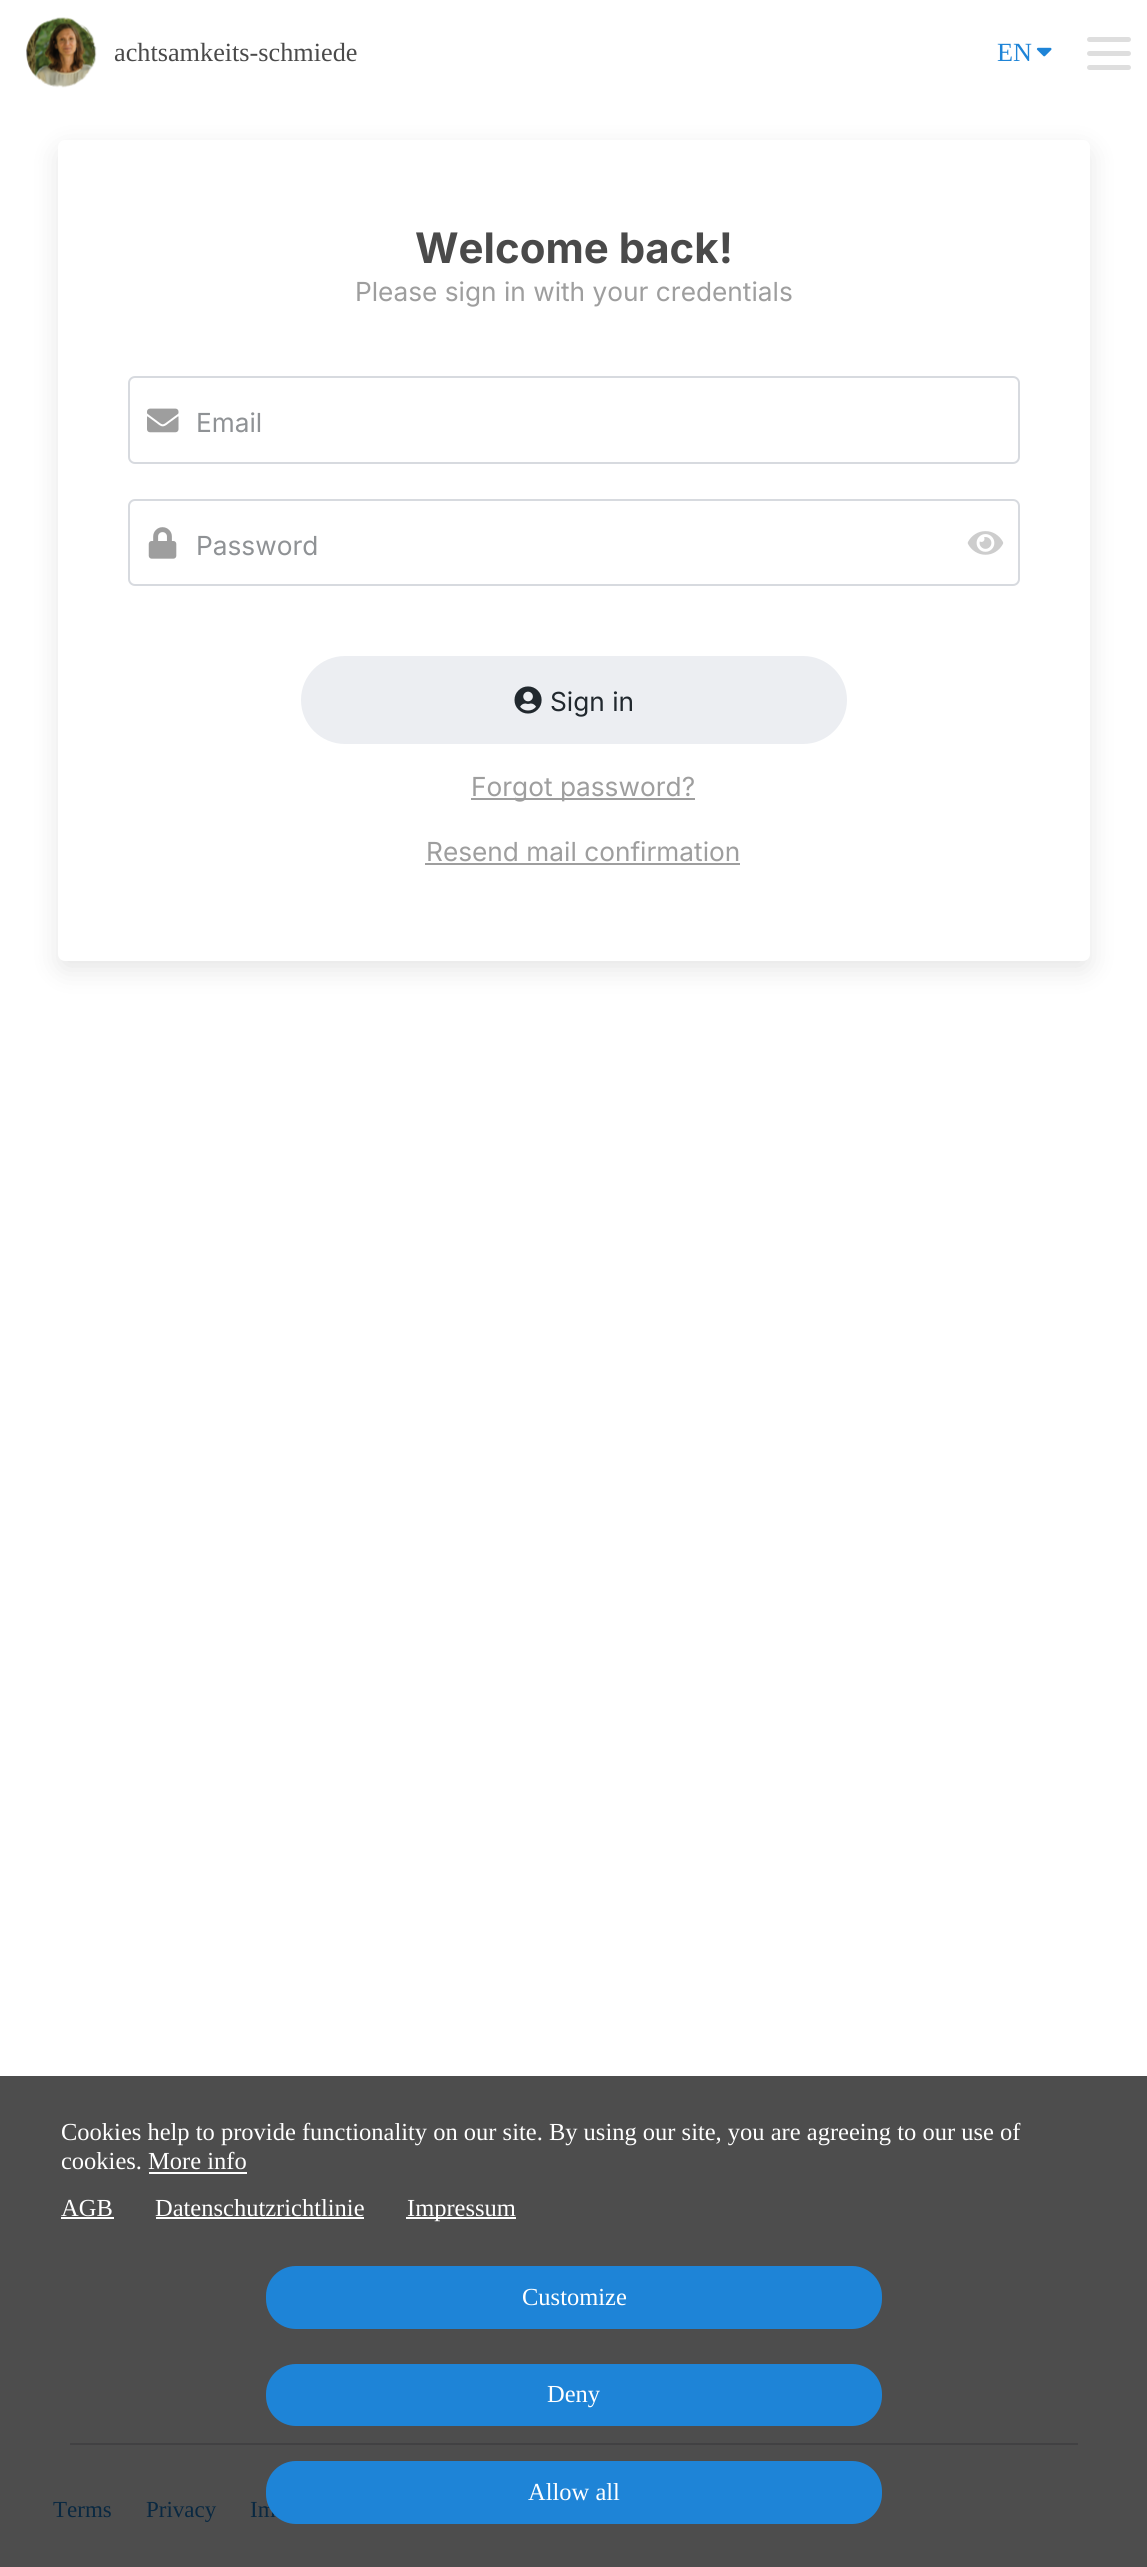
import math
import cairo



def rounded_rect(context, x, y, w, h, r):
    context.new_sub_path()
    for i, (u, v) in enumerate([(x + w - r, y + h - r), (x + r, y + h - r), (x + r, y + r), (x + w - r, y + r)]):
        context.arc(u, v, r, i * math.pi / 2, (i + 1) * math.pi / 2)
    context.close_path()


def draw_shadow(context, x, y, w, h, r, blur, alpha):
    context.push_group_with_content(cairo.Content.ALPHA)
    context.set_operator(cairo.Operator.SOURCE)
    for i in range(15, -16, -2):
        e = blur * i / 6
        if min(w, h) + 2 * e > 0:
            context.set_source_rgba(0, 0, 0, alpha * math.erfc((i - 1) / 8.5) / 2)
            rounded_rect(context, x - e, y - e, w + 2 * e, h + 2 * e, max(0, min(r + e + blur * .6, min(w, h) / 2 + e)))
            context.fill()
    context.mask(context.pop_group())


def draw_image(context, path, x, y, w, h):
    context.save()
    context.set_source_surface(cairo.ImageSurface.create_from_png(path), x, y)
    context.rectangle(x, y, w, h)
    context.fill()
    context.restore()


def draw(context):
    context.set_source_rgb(1, 1, 1)
    context.paint()
    context.set_source_rgb(77 / 255, 77 / 255, 77 / 255)
    context.rectangle(0, 2076, 1147, 491)
    context.fill()
    draw_image(context, "images/1.png", 26, 17, 71, 71)
    draw_image(context, "images/2.png", 1036, 47, 16, 10)
    context.set_source_rgb(222 / 255, 222 / 255, 222 / 255)
    rounded_rect(context, 1087, 37, 44, 5, 2.5)
    context.fill()
    rounded_rect(context, 1087, 51, 44, 5, 2.5)
    context.fill()
    rounded_rect(context, 1087, 65, 44, 5, 2.5)
    context.fill()
    context.set_source_rgb(0, 0, 0)
    draw_shadow(context, 58, 149, 1032, 821, 7, 13, 0.1)
    context.set_source_rgb(1, 1, 1)
    rounded_rect(context, 58, 140, 1032, 821, 7)
    context.fill()
    rounded_rect(context, 129, 377, 890, 86, 6)
    context.set_source_rgb(215 / 255, 218 / 255, 223 / 255)
    context.stroke()
    draw_image(context, "images/3.png", 147, 408, 32, 25)
    rounded_rect(context, 129, 500, 890, 85, 6)
    context.stroke()
    draw_image(context, "images/4.png", 148, 527, 29, 32)
    draw_image(context, "images/5.png", 967, 531, 37, 24)
    context.set_source_rgb(236 / 255, 238 / 255, 242 / 255)
    rounded_rect(context, 301, 656, 546, 88, 44)
    context.fill()
    draw_image(context, "images/6.png", 514, 686, 28, 28)
    context.set_source_rgb(158 / 255, 158 / 255, 158 / 255)
    context.rectangle(471, 798, 224, 2)
    context.fill()
    context.rectangle(425, 863, 315, 2)
    context.fill()
    context.set_source_rgb(65 / 255, 65 / 255, 67 / 255)
    context.rectangle(70, 2443, 1008, 2)
    context.fill()
    context.set_source_rgb(1, 1, 1)
    context.rectangle(149, 2172, 98, 2)
    context.fill()
    context.rectangle(61, 2217, 53, 2)
    context.fill()
    context.rectangle(156, 2217, 208, 2)
    context.fill()
    context.rectangle(406, 2217, 110, 2)
    context.fill()
    context.set_source_rgb(30 / 255, 132 / 255, 215 / 255)
    rounded_rect(context, 266, 2266, 616, 63, 30)
    context.fill()
    rounded_rect(context, 266, 2364, 616, 62, 30)
    context.fill()
    context.select_font_face("Liberation Serif")
    context.set_font_size(26.25)
    context.set_source_rgb(74 / 255, 74 / 255, 74 / 255)
    context.move_to(114, 61)
    context.show_text("achtsamkeits-schmiede")
    context.set_source_rgb(30 / 255, 132 / 255, 215 / 255)
    context.move_to(997, 61)
    context.show_text("EN")
    context.select_font_face("Inter", cairo.FontSlant.NORMAL, cairo.FontWeight.BOLD)
    context.set_font_size(42)
    context.set_source_rgb(74 / 255, 74 / 255, 74 / 255)
    context.move_to(415, 263)
    context.show_text("Welcome back!")
    context.select_font_face("Inter")
    context.set_font_size(26.25)
    context.set_source_rgb(158 / 255, 158 / 255, 158 / 255)
    context.move_to(355, 301)
    context.show_text("Please sign in with your credentials")
    context.set_source_rgb(143 / 255, 146 / 255, 149 / 255)
    context.move_to(196, 432)
    context.show_text("Email")
    context.move_to(196, 555)
    context.show_text("Password")
    context.set_source_rgb(33 / 255, 40 / 255, 46 / 255)
    context.move_to(550, 711)
    context.show_text("Sign in")
    context.set_source_rgb(158 / 255, 158 / 255, 158 / 255)
    context.move_to(471, 796)
    context.show_text("Forgot password?")
    context.move_to(426, 861)
    context.show_text("Resend mail confirmation")
    context.select_font_face("Liberation Serif")
    context.set_font_size(23)
    context.set_source_rgb(9 / 255, 40 / 255, 65 / 255)
    context.move_to(53, 2517)
    context.show_text("Terms")
    context.move_to(146, 2517)
    context.show_text("Privacy")
    context.move_to(250, 2517)
    context.show_text("Im")
    context.set_font_size(24.5)
    context.set_source_rgb(1, 1, 1)
    context.move_to(61, 2140)
    context.show_text("Cookies help to provide functionality on our site. By using our site, you are agreeing to our use of")
    context.move_to(61, 2169)
    context.show_text("cookies. More info")
    context.move_to(61, 2216)
    context.show_text("AGB")
    context.move_to(155, 2216)
    context.show_text("Datenschutzrichtlinie")
    context.move_to(407, 2216)
    context.show_text("Impressum")
    context.move_to(522, 2305)
    context.show_text("Customize")
    context.move_to(547, 2402)
    context.show_text("Deny")
    context.set_source_rgb(30 / 255, 132 / 255, 215 / 255)
    rounded_rect(context, 266, 2461, 616, 63, 30)
    context.fill()
    context.set_source_rgb(1, 1, 1)
    context.move_to(528, 2500)
    context.show_text("Allow all")


surface = cairo.ImageSurface(cairo.Format.RGB24, 1147, 2567)
context = cairo.Context(surface)
options = cairo.FontOptions()
options.set_hint_metrics(cairo.HintMetrics.OFF)
options.set_hint_style(cairo.HintStyle.NONE)
context.set_font_options(options)
context.set_miter_limit(4)
draw(context)
surface.write_to_png("out.png")
